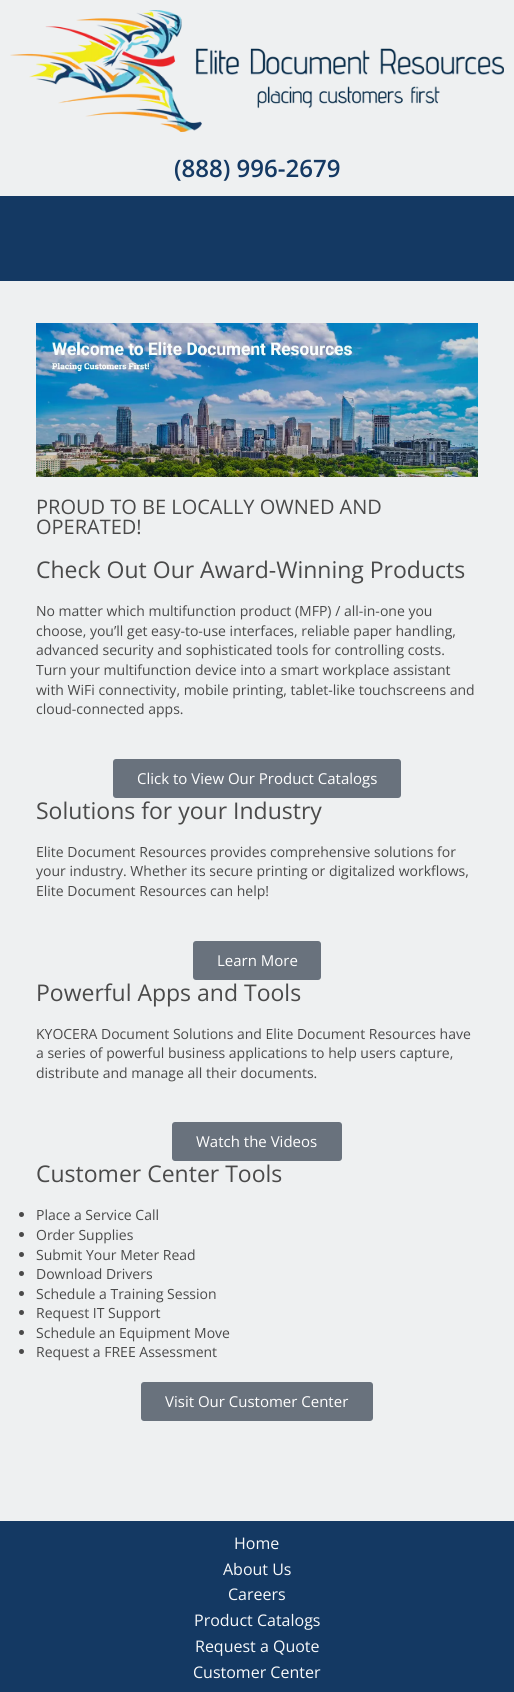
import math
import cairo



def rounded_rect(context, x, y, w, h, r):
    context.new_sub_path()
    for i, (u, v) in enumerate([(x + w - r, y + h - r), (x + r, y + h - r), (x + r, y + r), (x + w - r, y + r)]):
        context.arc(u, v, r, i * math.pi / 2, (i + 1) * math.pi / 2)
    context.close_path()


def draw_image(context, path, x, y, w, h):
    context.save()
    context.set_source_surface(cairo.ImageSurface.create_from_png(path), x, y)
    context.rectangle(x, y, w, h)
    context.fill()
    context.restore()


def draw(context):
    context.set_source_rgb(238 / 255, 240 / 255, 241 / 255)
    context.paint()
    draw_image(context, "images/1.png", 10, 10, 494, 122)
    context.set_source_rgb(20 / 255, 57 / 255, 99 / 255)
    context.rectangle(0, 196, 514, 85)
    context.fill()
    draw_image(context, "images/2.png", 36, 323, 442, 154)
    context.set_source_rgb(105 / 255, 114 / 255, 125 / 255)
    rounded_rect(context, 113, 759, 288, 39, 3)
    context.fill()
    rounded_rect(context, 193, 941, 128, 39, 3)
    context.fill()
    rounded_rect(context, 172, 1122, 170, 39, 3)
    context.fill()
    context.set_source_rgb(74 / 255, 74 / 255, 74 / 255)
    context.arc(21.5, 1214.5, 2.5, 0, 2 * math.pi)
    context.fill()
    context.arc(21.5, 1234.5, 2.5, 0, 2 * math.pi)
    context.fill()
    context.arc(21.5, 1254.5, 2.5, 0, 2 * math.pi)
    context.fill()
    context.arc(21.5, 1273.5, 2.5, 0, 2 * math.pi)
    context.fill()
    context.arc(21.5, 1293.5, 2.5, 0, 2 * math.pi)
    context.fill()
    context.arc(21.5, 1312.5, 2.5, 0, 2 * math.pi)
    context.fill()
    context.arc(21.5, 1332.5, 2.5, 0, 2 * math.pi)
    context.fill()
    context.arc(21.5, 1351.5, 2.5, 0, 2 * math.pi)
    context.fill()
    context.set_source_rgb(105 / 255, 114 / 255, 125 / 255)
    rounded_rect(context, 141, 1382, 232, 39, 3)
    context.fill()
    context.set_source_rgb(20 / 255, 57 / 255, 99 / 255)
    context.rectangle(0, 1521, 514, 171)
    context.fill()
    context.select_font_face("Open Sans SemiBold")
    context.set_font_size(24)
    context.move_to(174, 177)
    context.show_text("(888) 996-2679")
    context.select_font_face("Open Sans")
    context.set_font_size(20)
    context.set_source_rgb(74 / 255, 74 / 255, 74 / 255)
    context.move_to(36, 514)
    context.show_text("PROUD TO BE LOCALLY OWNED AND")
    context.move_to(36, 534)
    context.show_text("OPERATED!")
    context.set_font_size(23)
    context.move_to(36, 578)
    context.show_text("Check Out Our Award-Winning Products")
    context.set_font_size(14)
    context.move_to(36, 616)
    context.show_text("No matter which multifunction product (MFP) / all-in-one you")
    context.move_to(36, 636)
    context.show_text("choose, you’ll get easy-to-use interfaces, reliable paper handling,")
    context.move_to(36, 655)
    context.show_text("advanced security and sophisticated tools for controlling costs.")
    context.move_to(36, 675)
    context.show_text("Turn your multifunction device into a smart workplace assistant")
    context.move_to(36, 695)
    context.show_text("with WiFi connectivity, mobile printing, tablet-like touchscreens and")
    context.move_to(36, 714)
    context.show_text("cloud-connected apps.")
    context.set_font_size(15)
    context.set_source_rgb(1, 1, 1)
    context.move_to(137, 784)
    context.show_text("Click to View Our Product Catalogs")
    context.set_font_size(23)
    context.set_source_rgb(74 / 255, 74 / 255, 74 / 255)
    context.move_to(36, 819)
    context.show_text("Solutions for your Industry")
    context.set_font_size(14)
    context.move_to(36, 857)
    context.show_text("Elite Document Resources provides comprehensive solutions for")
    context.move_to(36, 876)
    context.show_text("your industry. Whether its secure printing or digitalized workflows,")
    context.move_to(36, 896)
    context.show_text("Elite Document Resources can help!")
    context.set_font_size(15)
    context.set_source_rgb(1, 1, 1)
    context.move_to(217, 966)
    context.show_text("Learn More")
    context.set_font_size(23)
    context.set_source_rgb(74 / 255, 74 / 255, 74 / 255)
    context.move_to(36, 1001)
    context.show_text("Powerful Apps and Tools")
    context.set_font_size(14)
    context.move_to(36, 1039)
    context.show_text("KYOCERA Document Solutions and Elite Document Resources have")
    context.move_to(36, 1058)
    context.show_text("a series of powerful business applications to help users capture,")
    context.move_to(36, 1078)
    context.show_text("distribute and manage all their documents.")
    context.set_font_size(15)
    context.set_source_rgb(1, 1, 1)
    context.move_to(196, 1147)
    context.show_text("Watch the Videos")
    context.set_font_size(23)
    context.set_source_rgb(74 / 255, 74 / 255, 74 / 255)
    context.move_to(36, 1182)
    context.show_text("Customer Center Tools")
    context.set_font_size(14)
    context.move_to(36, 1220)
    context.show_text("Place a Service Call")
    context.move_to(36, 1240)
    context.show_text("Order Supplies")
    context.move_to(36, 1260)
    context.show_text("Submit Your Meter Read")
    context.move_to(36, 1279)
    context.show_text("Download Drivers")
    context.move_to(36, 1299)
    context.show_text("Schedule a Training Session")
    context.move_to(36, 1318)
    context.show_text("Request IT Support")
    context.move_to(36, 1338)
    context.show_text("Schedule an Equipment Move")
    context.move_to(36, 1357)
    context.show_text("Request a FREE Assessment")
    context.set_font_size(15)
    context.set_source_rgb(1, 1, 1)
    context.move_to(165, 1407)
    context.show_text("Visit Our Customer Center")
    context.set_font_size(16)
    context.set_source_rgb(248 / 255, 249 / 255, 250 / 255)
    context.move_to(234, 1549)
    context.show_text("Home")
    context.move_to(223, 1575)
    context.show_text("About Us")
    context.move_to(228, 1600)
    context.show_text("Careers")
    context.move_to(194, 1626)
    context.show_text("Product Catalogs")
    context.move_to(195, 1652)
    context.show_text("Request a Quote")
    context.move_to(193, 1678)
    context.show_text("Customer Center")


surface = cairo.ImageSurface(cairo.Format.RGB24, 514, 1692)
context = cairo.Context(surface)
options = cairo.FontOptions()
options.set_hint_metrics(cairo.HintMetrics.OFF)
options.set_hint_style(cairo.HintStyle.NONE)
context.set_font_options(options)
context.set_miter_limit(4)
draw(context)
surface.write_to_png("out.png")
